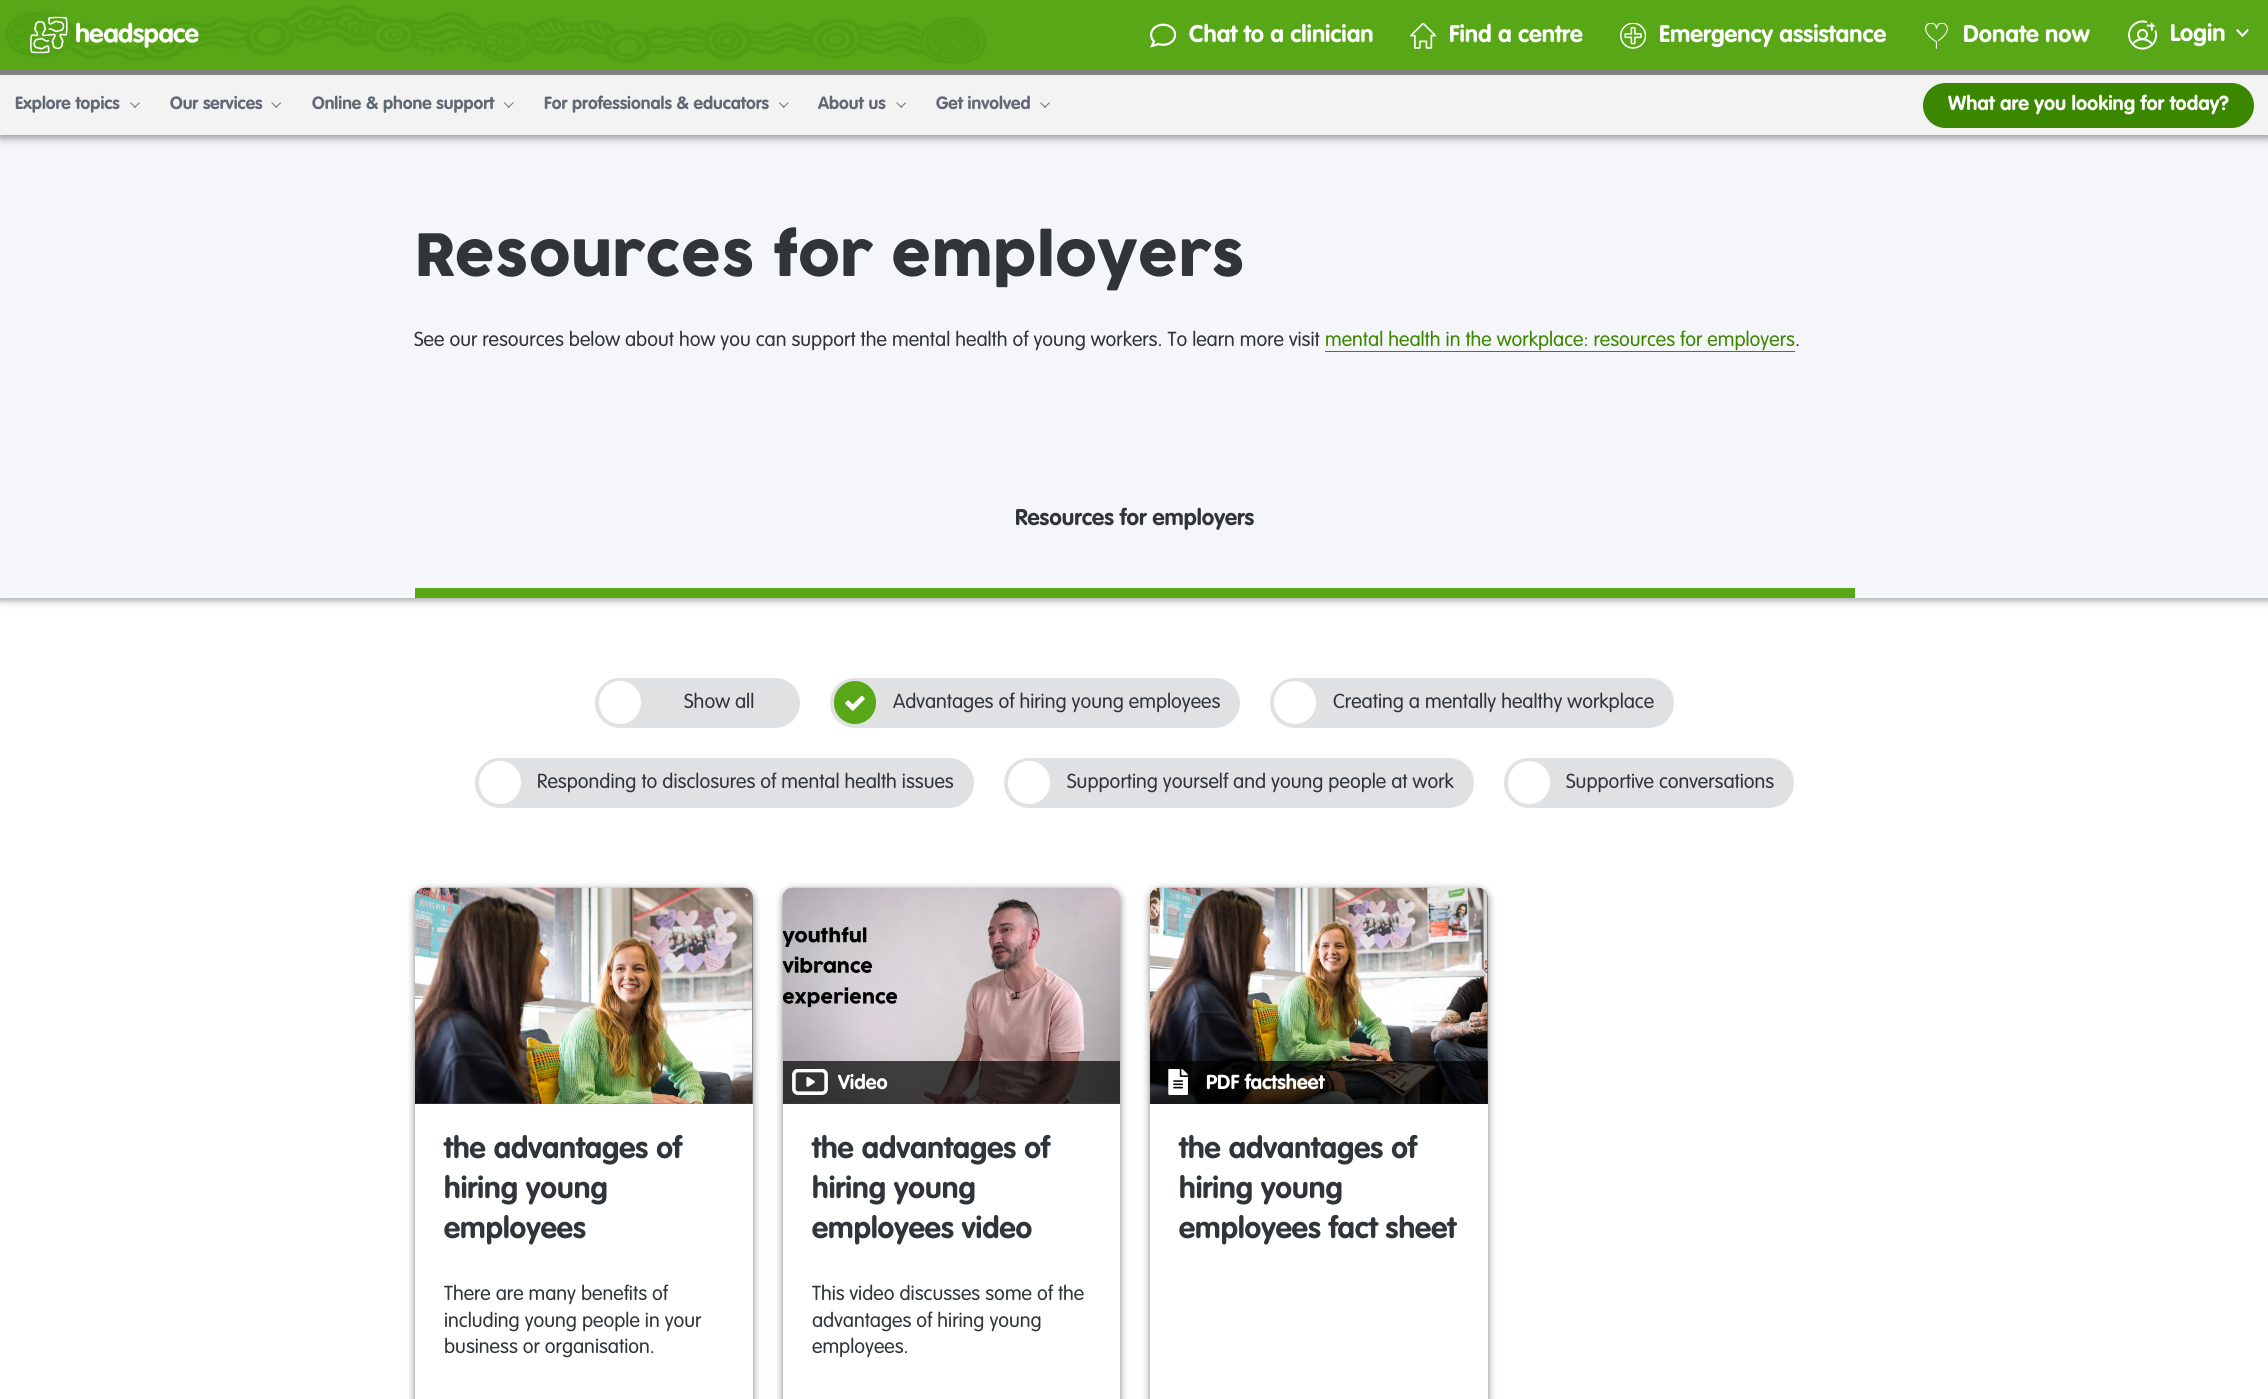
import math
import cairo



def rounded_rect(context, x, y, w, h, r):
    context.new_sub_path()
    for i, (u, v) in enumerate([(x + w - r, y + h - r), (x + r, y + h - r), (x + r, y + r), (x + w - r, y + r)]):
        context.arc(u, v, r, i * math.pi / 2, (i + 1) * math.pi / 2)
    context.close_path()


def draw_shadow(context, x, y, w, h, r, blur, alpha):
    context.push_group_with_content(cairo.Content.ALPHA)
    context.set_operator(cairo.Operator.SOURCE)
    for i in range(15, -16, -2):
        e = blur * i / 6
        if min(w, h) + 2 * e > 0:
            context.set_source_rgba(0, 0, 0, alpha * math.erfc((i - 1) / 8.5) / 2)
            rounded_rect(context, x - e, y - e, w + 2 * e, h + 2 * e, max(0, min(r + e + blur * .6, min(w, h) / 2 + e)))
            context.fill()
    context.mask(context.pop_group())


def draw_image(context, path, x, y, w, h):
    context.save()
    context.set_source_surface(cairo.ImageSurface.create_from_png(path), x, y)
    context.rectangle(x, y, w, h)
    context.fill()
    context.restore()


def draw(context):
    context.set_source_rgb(1, 1, 1)
    context.paint()
    context.set_source_rgb(0, 0, 0)
    draw_shadow(context, 0, 138, 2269, 462, 0, 4, 0.4)
    context.set_source_rgb(245 / 255, 246 / 255, 249 / 255)
    context.rectangle(0, 135, 2268, 463)
    context.fill()
    context.set_source_rgb(0, 0, 0)
    draw_shadow(context, 0, 78, 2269, 60, 0, 4, 0.4)
    context.set_source_rgb(87 / 255, 167 / 255, 22 / 255)
    context.rectangle(0, 0, 2268, 70)
    context.fill()
    draw_image(context, "images/1.png", 5, 4, 982, 60)
    context.set_source_rgb(128 / 255, 128 / 255, 128 / 255)
    context.rectangle(0, 70, 2268, 5)
    context.fill()
    draw_image(context, "images/2.png", 30, 16, 169, 38)
    draw_image(context, "images/3.png", 1150, 23, 26, 25)
    draw_image(context, "images/4.png", 1410, 23, 26, 26)
    draw_image(context, "images/5.png", 1620, 23, 26, 26)
    draw_image(context, "images/6.png", 1925, 23, 23, 26)
    draw_image(context, "images/7.png", 2128, 20, 30, 30)
    draw_image(context, "images/8.png", 2236, 29, 13, 9)
    context.set_source_rgb(243 / 255, 243 / 255, 243 / 255)
    context.rectangle(0, 75, 2268, 60)
    context.fill()
    draw_image(context, "images/9.png", 130, 102, 10, 6)
    draw_image(context, "images/10.png", 271, 102, 10, 6)
    draw_image(context, "images/11.png", 504, 102, 10, 6)
    draw_image(context, "images/11.png", 779, 102, 10, 6)
    draw_image(context, "images/10.png", 896, 102, 10, 6)
    draw_image(context, "images/9.png", 1040, 102, 10, 6)
    context.set_source_rgb(60 / 255, 135 / 255, 0)
    rounded_rect(context, 1923, 83, 331, 45, 22.5)
    context.fill()
    context.rectangle(1325, 351, 470, 1)
    context.fill()
    context.set_source_rgb(87 / 255, 167 / 255, 22 / 255)
    context.rectangle(415, 588, 1440, 10)
    context.fill()
    context.set_source_rgb(223 / 255, 225 / 255, 227 / 255)
    rounded_rect(context, 595, 678, 205, 50, 25)
    context.fill()
    context.set_source_rgb(1, 1, 1)
    rounded_rect(context, 599, 681, 42, 43, 21)
    context.fill()
    context.set_source_rgb(223 / 255, 225 / 255, 227 / 255)
    rounded_rect(context, 830, 678, 410, 50, 25)
    context.fill()
    context.set_source_rgb(87 / 255, 167 / 255, 22 / 255)
    rounded_rect(context, 834, 681, 42, 43, 21)
    context.fill()
    draw_image(context, "images/12.png", 845, 695, 20, 16)
    context.set_source_rgb(223 / 255, 225 / 255, 227 / 255)
    rounded_rect(context, 1270, 678, 404, 50, 25)
    context.fill()
    context.set_source_rgb(1, 1, 1)
    rounded_rect(context, 1274, 681, 42, 43, 21)
    context.fill()
    context.set_source_rgb(223 / 255, 225 / 255, 227 / 255)
    rounded_rect(context, 475, 758, 499, 50, 25)
    context.fill()
    context.set_source_rgb(1, 1, 1)
    rounded_rect(context, 479, 761, 42, 43, 21)
    context.fill()
    context.set_source_rgb(223 / 255, 225 / 255, 227 / 255)
    rounded_rect(context, 1004, 758, 470, 50, 25)
    context.fill()
    context.set_source_rgb(1, 1, 1)
    rounded_rect(context, 1008, 761, 42, 43, 21)
    context.fill()
    context.set_source_rgb(223 / 255, 225 / 255, 227 / 255)
    rounded_rect(context, 1504, 758, 290, 50, 25)
    context.fill()
    context.set_source_rgb(1, 1, 1)
    rounded_rect(context, 1508, 761, 42, 43, 21)
    context.fill()
    context.set_source_rgb(0, 0, 0)
    draw_shadow(context, 415, 890, 338, 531, 10, 4, 0.5)
    context.set_source_rgb(1, 1, 1)
    rounded_rect(context, 415, 888, 338, 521, 10)
    context.fill()
    context.set_source_rgb(97 / 255, 106 / 255, 116 / 255)
    context.new_path()
    context.move_to(425, 888)
    context.line_to(743, 888)
    context.curve_to(748.5, 888, 753, 892.5, 753, 898)
    context.line_to(753, 1104)
    context.line_to(415, 1104)
    context.line_to(415, 898)
    context.curve_to(415, 892.5, 419.5, 888, 425, 888)
    context.close_path()
    context.fill()
    draw_image(context, "images/13.png", 415, 887, 338, 217)
    context.set_source_rgb(0, 0, 0)
    draw_shadow(context, 783, 890, 337, 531, 10, 4, 0.5)
    context.set_source_rgb(1, 1, 1)
    rounded_rect(context, 783, 888, 337, 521, 10)
    context.fill()
    draw_image(context, "images/14.png", 782, 887, 338, 217)
    context.set_source_rgba(0, 0, 0, 0.7)
    context.rectangle(783, 1061, 337, 43)
    context.fill()
    draw_image(context, "images/15.png", 792, 1069, 36, 26)
    context.set_source_rgb(0, 0, 0)
    draw_shadow(context, 1150, 890, 338, 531, 10, 4, 0.5)
    context.set_source_rgb(1, 1, 1)
    rounded_rect(context, 1150, 888, 338, 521, 10)
    context.fill()
    context.set_source_rgb(97 / 255, 106 / 255, 116 / 255)
    context.new_path()
    context.move_to(1160, 888)
    context.line_to(1478, 888)
    context.curve_to(1483.5, 888, 1488, 892.5, 1488, 898)
    context.line_to(1488, 1104)
    context.line_to(1150, 1104)
    context.line_to(1150, 898)
    context.curve_to(1150, 892.5, 1154.5, 888, 1160, 888)
    context.close_path()
    context.fill()
    draw_image(context, "images/16.png", 1150, 887, 338, 217)
    context.set_source_rgba(0, 0, 0, 0.7)
    context.rectangle(1150, 1061, 338, 43)
    context.fill()
    draw_image(context, "images/17.png", 1168, 1069, 20, 26)
    context.select_font_face("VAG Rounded", cairo.FontSlant.NORMAL, cairo.FontWeight.BOLD)
    context.set_font_size(23.75)
    context.set_source_rgb(1, 1, 1)
    context.move_to(1189, 42)
    context.show_text("Chat to a clinician")
    context.move_to(1449, 42)
    context.show_text("Find a centre")
    context.move_to(1659, 42)
    context.show_text("Emergency assistance")
    context.move_to(1963, 42)
    context.show_text("Donate now")
    context.move_to(2170, 41)
    context.show_text("Login")
    context.set_font_size(17.5)
    context.set_source_rgb(97 / 255, 106 / 255, 116 / 255)
    context.move_to(15, 109)
    context.show_text("Explore topics")
    context.move_to(170, 109)
    context.show_text("Our services")
    context.move_to(312, 109)
    context.show_text("Online & phone support")
    context.move_to(544, 109)
    context.show_text("For professionals & educators")
    context.move_to(818, 109)
    context.show_text("About us")
    context.move_to(936, 109)
    context.show_text("Get involved")
    context.set_font_size(20)
    context.set_source_rgb(1, 1, 1)
    context.move_to(1948, 110)
    context.show_text("What are you looking for today?")
    context.select_font_face("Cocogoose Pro")
    context.set_font_size(57.5)
    context.set_source_rgb(48 / 255, 53 / 255, 58 / 255)
    context.move_to(414, 276)
    context.show_text("Resources for employers")
    context.select_font_face("VAG Rounded Light")
    context.set_font_size(20)
    context.move_to(414, 346)
    context.show_text("See our resources below about how you can support the mental health of young workers. To learn more visit")
    context.set_source_rgb(60 / 255, 135 / 255, 0)
    context.move_to(1325, 346)
    context.show_text("mental health in the workplace: resources for employers")
    context.set_source_rgb(48 / 255, 53 / 255, 58 / 255)
    context.move_to(1795, 346)
    context.show_text(".")
    context.select_font_face("VAG Rounded", cairo.FontSlant.NORMAL, cairo.FontWeight.BOLD)
    context.set_font_size(22.5)
    context.move_to(1015, 525)
    context.show_text("Resources for employers")
    context.select_font_face("VAG Rounded Light")
    context.set_font_size(20)
    context.move_to(684, 708)
    context.show_text("Show all")
    context.move_to(893, 708)
    context.show_text("Advantages of hiring young employees")
    context.move_to(1333, 708)
    context.show_text("Creating a mentally healthy workplace")
    context.move_to(537, 788)
    context.show_text("Responding to disclosures of mental health issues")
    context.move_to(1067, 788)
    context.show_text("Supporting yourself and young people at work")
    context.move_to(1566, 788)
    context.show_text("Supportive conversations")
    context.select_font_face("VAG Rounded", cairo.FontSlant.NORMAL, cairo.FontWeight.BOLD)
    context.set_font_size(30)
    context.move_to(444, 1158)
    context.show_text("the advantages of")
    context.move_to(444, 1198)
    context.show_text("hiring young")
    context.move_to(444, 1238)
    context.show_text("employees")
    context.select_font_face("VAG Rounded Light")
    context.set_font_size(20)
    context.move_to(444, 1300)
    context.show_text("There are many benefits of")
    context.move_to(444, 1327)
    context.show_text("including young people in your")
    context.move_to(444, 1353)
    context.show_text("business or organisation.")
    context.select_font_face("VAG Rounded", cairo.FontSlant.NORMAL, cairo.FontWeight.BOLD)
    context.set_source_rgb(1, 1, 1)
    context.move_to(838, 1089)
    context.show_text("Video")
    context.set_font_size(30)
    context.set_source_rgb(48 / 255, 53 / 255, 58 / 255)
    context.move_to(812, 1158)
    context.show_text("the advantages of")
    context.move_to(812, 1198)
    context.show_text("hiring young")
    context.move_to(812, 1238)
    context.show_text("employees video")
    context.select_font_face("VAG Rounded Light")
    context.set_font_size(20)
    context.move_to(812, 1300)
    context.show_text("This video discusses some of the")
    context.move_to(812, 1327)
    context.show_text("advantages of hiring young")
    context.move_to(812, 1353)
    context.show_text("employees.")
    context.select_font_face("VAG Rounded", cairo.FontSlant.NORMAL, cairo.FontWeight.BOLD)
    context.set_source_rgb(1, 1, 1)
    context.move_to(1206, 1089)
    context.show_text("PDF factsheet")
    context.set_font_size(30)
    context.set_source_rgb(48 / 255, 53 / 255, 58 / 255)
    context.move_to(1179, 1158)
    context.show_text("the advantages of")
    context.move_to(1179, 1198)
    context.show_text("hiring young")
    context.move_to(1179, 1238)
    context.show_text("employees fact sheet")


surface = cairo.ImageSurface(cairo.Format.RGB24, 2268, 1399)
context = cairo.Context(surface)
options = cairo.FontOptions()
options.set_hint_metrics(cairo.HintMetrics.OFF)
options.set_hint_style(cairo.HintStyle.NONE)
context.set_font_options(options)
context.set_miter_limit(4)
draw(context)
surface.write_to_png("out.png")
